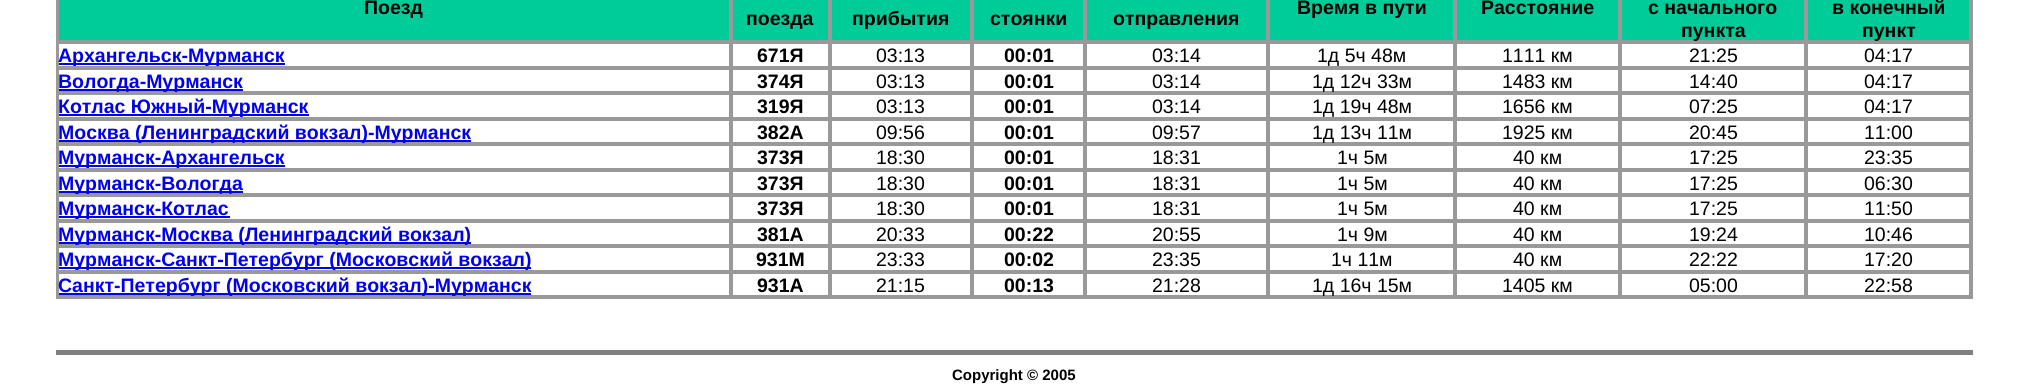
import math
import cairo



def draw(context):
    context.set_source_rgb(1, 1, 1)
    context.paint()
    context.rectangle(57, -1, 1915, 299)
    context.set_source_rgb(153 / 255, 153 / 255, 153 / 255)
    context.stroke()
    context.set_source_rgb(0, 204 / 255, 153 / 255)
    context.rectangle(59, 0, 1910, 40)
    context.fill()
    context.rectangle(58, -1, 672, 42)
    context.set_source_rgb(153 / 255, 153 / 255, 153 / 255)
    context.stroke()
    context.rectangle(732, -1, 97, 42)
    context.stroke()
    context.rectangle(831, -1, 140, 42)
    context.stroke()
    context.rectangle(973, -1, 111, 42)
    context.stroke()
    context.rectangle(1086, -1, 181, 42)
    context.stroke()
    context.rectangle(1269, -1, 185, 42)
    context.stroke()
    context.rectangle(1456, -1, 163, 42)
    context.stroke()
    context.rectangle(1621, -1, 184, 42)
    context.stroke()
    context.rectangle(1807, -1, 163, 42)
    context.stroke()
    context.rectangle(58, 43, 672, 24)
    context.stroke()
    context.set_source_rgb(0, 0, 238 / 255)
    context.rectangle(59, 63, 226, 2)
    context.fill()
    context.rectangle(732, 43, 97, 24)
    context.set_source_rgb(153 / 255, 153 / 255, 153 / 255)
    context.stroke()
    context.rectangle(831, 43, 140, 24)
    context.stroke()
    context.rectangle(973, 43, 111, 24)
    context.stroke()
    context.rectangle(1086, 43, 181, 24)
    context.stroke()
    context.rectangle(1269, 43, 185, 24)
    context.stroke()
    context.rectangle(1456, 43, 163, 24)
    context.stroke()
    context.rectangle(1621, 43, 184, 24)
    context.stroke()
    context.rectangle(1807, 43, 163, 24)
    context.stroke()
    context.rectangle(58, 69, 672, 23)
    context.stroke()
    context.set_source_rgb(0, 0, 238 / 255)
    context.rectangle(59, 89, 184, 2)
    context.fill()
    context.rectangle(732, 69, 97, 23)
    context.set_source_rgb(153 / 255, 153 / 255, 153 / 255)
    context.stroke()
    context.rectangle(831, 69, 140, 23)
    context.stroke()
    context.rectangle(973, 69, 111, 23)
    context.stroke()
    context.rectangle(1086, 69, 181, 23)
    context.stroke()
    context.rectangle(1269, 69, 185, 23)
    context.stroke()
    context.rectangle(1456, 69, 163, 23)
    context.stroke()
    context.rectangle(1621, 69, 184, 23)
    context.stroke()
    context.rectangle(1807, 69, 163, 23)
    context.stroke()
    context.rectangle(58, 94, 672, 24)
    context.stroke()
    context.set_source_rgb(0, 0, 238 / 255)
    context.rectangle(59, 114, 250, 2)
    context.fill()
    context.rectangle(732, 94, 97, 24)
    context.set_source_rgb(153 / 255, 153 / 255, 153 / 255)
    context.stroke()
    context.rectangle(831, 94, 140, 24)
    context.stroke()
    context.rectangle(973, 94, 111, 24)
    context.stroke()
    context.rectangle(1086, 94, 181, 24)
    context.stroke()
    context.rectangle(1269, 94, 185, 24)
    context.stroke()
    context.rectangle(1456, 94, 163, 24)
    context.stroke()
    context.rectangle(1621, 94, 184, 24)
    context.stroke()
    context.rectangle(1807, 94, 163, 24)
    context.stroke()
    context.rectangle(58, 120, 672, 23)
    context.stroke()
    context.set_source_rgb(0, 0, 238 / 255)
    context.rectangle(59, 140, 412, 2)
    context.fill()
    context.rectangle(732, 120, 97, 23)
    context.set_source_rgb(153 / 255, 153 / 255, 153 / 255)
    context.stroke()
    context.rectangle(831, 120, 140, 23)
    context.stroke()
    context.rectangle(973, 120, 111, 23)
    context.stroke()
    context.rectangle(1086, 120, 181, 23)
    context.stroke()
    context.rectangle(1269, 120, 185, 23)
    context.stroke()
    context.rectangle(1456, 120, 163, 23)
    context.stroke()
    context.rectangle(1621, 120, 184, 23)
    context.stroke()
    context.rectangle(1807, 120, 163, 23)
    context.stroke()
    context.rectangle(58, 145, 672, 24)
    context.stroke()
    context.set_source_rgb(0, 0, 238 / 255)
    context.rectangle(59, 165, 226, 2)
    context.fill()
    context.rectangle(732, 145, 97, 24)
    context.set_source_rgb(153 / 255, 153 / 255, 153 / 255)
    context.stroke()
    context.rectangle(831, 145, 140, 24)
    context.stroke()
    context.rectangle(973, 145, 111, 24)
    context.stroke()
    context.rectangle(1086, 145, 181, 24)
    context.stroke()
    context.rectangle(1269, 145, 185, 24)
    context.stroke()
    context.rectangle(1456, 145, 163, 24)
    context.stroke()
    context.rectangle(1621, 145, 184, 24)
    context.stroke()
    context.rectangle(1807, 145, 163, 24)
    context.stroke()
    context.rectangle(58, 171, 672, 23)
    context.stroke()
    context.set_source_rgb(0, 0, 238 / 255)
    context.rectangle(59, 191, 184, 2)
    context.fill()
    context.rectangle(732, 171, 97, 23)
    context.set_source_rgb(153 / 255, 153 / 255, 153 / 255)
    context.stroke()
    context.rectangle(831, 171, 140, 23)
    context.stroke()
    context.rectangle(973, 171, 111, 23)
    context.stroke()
    context.rectangle(1086, 171, 181, 23)
    context.stroke()
    context.rectangle(1269, 171, 185, 23)
    context.stroke()
    context.rectangle(1456, 171, 163, 23)
    context.stroke()
    context.rectangle(1621, 171, 184, 23)
    context.stroke()
    context.rectangle(1807, 171, 163, 23)
    context.stroke()
    context.rectangle(58, 196, 672, 24)
    context.stroke()
    context.set_source_rgb(0, 0, 238 / 255)
    context.rectangle(59, 216, 171, 2)
    context.fill()
    context.rectangle(732, 196, 97, 24)
    context.set_source_rgb(153 / 255, 153 / 255, 153 / 255)
    context.stroke()
    context.rectangle(831, 196, 140, 24)
    context.stroke()
    context.rectangle(973, 196, 111, 24)
    context.stroke()
    context.rectangle(1086, 196, 181, 24)
    context.stroke()
    context.rectangle(1269, 196, 185, 24)
    context.stroke()
    context.rectangle(1456, 196, 163, 24)
    context.stroke()
    context.rectangle(1621, 196, 184, 24)
    context.stroke()
    context.rectangle(1807, 196, 163, 24)
    context.stroke()
    context.rectangle(58, 222, 672, 23)
    context.stroke()
    context.set_source_rgb(0, 0, 238 / 255)
    context.rectangle(59, 242, 412, 2)
    context.fill()
    context.rectangle(732, 222, 97, 23)
    context.set_source_rgb(153 / 255, 153 / 255, 153 / 255)
    context.stroke()
    context.rectangle(831, 222, 140, 23)
    context.stroke()
    context.rectangle(973, 222, 111, 23)
    context.stroke()
    context.rectangle(1086, 222, 181, 23)
    context.stroke()
    context.rectangle(1269, 222, 185, 23)
    context.stroke()
    context.rectangle(1456, 222, 163, 23)
    context.stroke()
    context.rectangle(1621, 222, 184, 23)
    context.stroke()
    context.rectangle(1807, 222, 163, 23)
    context.stroke()
    context.rectangle(58, 247, 672, 24)
    context.stroke()
    context.set_source_rgb(0, 0, 238 / 255)
    context.rectangle(59, 267, 472, 2)
    context.fill()
    context.rectangle(732, 247, 97, 24)
    context.set_source_rgb(153 / 255, 153 / 255, 153 / 255)
    context.stroke()
    context.rectangle(831, 247, 140, 24)
    context.stroke()
    context.rectangle(973, 247, 111, 24)
    context.stroke()
    context.rectangle(1086, 247, 181, 24)
    context.stroke()
    context.rectangle(1269, 247, 185, 24)
    context.stroke()
    context.rectangle(1456, 247, 163, 24)
    context.stroke()
    context.rectangle(1621, 247, 184, 24)
    context.stroke()
    context.rectangle(1807, 247, 163, 24)
    context.stroke()
    context.rectangle(58, 273, 672, 23)
    context.stroke()
    context.set_source_rgb(0, 0, 238 / 255)
    context.rectangle(59, 293, 472, 2)
    context.fill()
    context.rectangle(732, 273, 97, 23)
    context.set_source_rgb(153 / 255, 153 / 255, 153 / 255)
    context.stroke()
    context.rectangle(831, 273, 140, 23)
    context.stroke()
    context.rectangle(973, 273, 111, 23)
    context.stroke()
    context.rectangle(1086, 273, 181, 23)
    context.stroke()
    context.rectangle(1269, 273, 185, 23)
    context.stroke()
    context.rectangle(1456, 273, 163, 23)
    context.stroke()
    context.rectangle(1621, 273, 184, 23)
    context.stroke()
    context.rectangle(1807, 273, 163, 23)
    context.stroke()
    context.set_source_rgb(128 / 255, 128 / 255, 128 / 255)
    context.rectangle(56, 350, 1917, 5)
    context.fill()
    context.select_font_face("Liberation Sans", cairo.FontSlant.NORMAL, cairo.FontWeight.BOLD)
    context.set_font_size(19.5)
    context.set_source_rgb(0, 0, 0)
    context.move_to(364, 14)
    context.show_text("Поезд")
    context.move_to(746, 25)
    context.show_text("поезда")
    context.move_to(852, 25)
    context.show_text("прибытия")
    context.move_to(990, 25)
    context.show_text("стоянки")
    context.move_to(1113, 25)
    context.show_text("отправления")
    context.move_to(1297, 14)
    context.show_text("Время в пути")
    context.move_to(1481, 14)
    context.show_text("Расстояние")
    context.move_to(1648, 14)
    context.show_text("с начального")
    context.move_to(1681, 37)
    context.show_text("пункта")
    context.move_to(1832, 14)
    context.show_text("в конечный")
    context.move_to(1862, 37)
    context.show_text("пункт")
    context.set_source_rgb(0, 0, 238 / 255)
    context.move_to(58, 62)
    context.show_text("Архангельск-Мурманск")
    context.set_source_rgb(0, 0, 0)
    context.move_to(757, 62)
    context.show_text("671Я")
    context.select_font_face("Liberation Sans")
    context.move_to(876, 62)
    context.show_text("03:13")
    context.select_font_face("Liberation Sans", cairo.FontSlant.NORMAL, cairo.FontWeight.BOLD)
    context.move_to(1004, 62)
    context.show_text("00:01")
    context.select_font_face("Liberation Sans")
    context.move_to(1152, 62)
    context.show_text("03:14")
    context.move_to(1317, 62)
    context.show_text("1д 5ч 48м")
    context.move_to(1502, 62)
    context.show_text("1111 км")
    context.move_to(1689, 62)
    context.show_text("21:25")
    context.move_to(1864, 62)
    context.show_text("04:17")
    context.select_font_face("Liberation Sans", cairo.FontSlant.NORMAL, cairo.FontWeight.BOLD)
    context.set_source_rgb(0, 0, 238 / 255)
    context.move_to(58, 88)
    context.show_text("Вологда-Мурманск")
    context.set_source_rgb(0, 0, 0)
    context.move_to(757, 88)
    context.show_text("374Я")
    context.select_font_face("Liberation Sans")
    context.move_to(876, 88)
    context.show_text("03:13")
    context.select_font_face("Liberation Sans", cairo.FontSlant.NORMAL, cairo.FontWeight.BOLD)
    context.move_to(1004, 88)
    context.show_text("00:01")
    context.select_font_face("Liberation Sans")
    context.move_to(1152, 88)
    context.show_text("03:14")
    context.move_to(1312, 88)
    context.show_text("1д 12ч 33м")
    context.move_to(1502, 88)
    context.show_text("1483 км")
    context.move_to(1689, 88)
    context.show_text("14:40")
    context.move_to(1864, 88)
    context.show_text("04:17")
    context.select_font_face("Liberation Sans", cairo.FontSlant.NORMAL, cairo.FontWeight.BOLD)
    context.set_source_rgb(0, 0, 238 / 255)
    context.move_to(58, 113)
    context.show_text("Котлас Южный-Мурманск")
    context.set_source_rgb(0, 0, 0)
    context.move_to(757, 113)
    context.show_text("319Я")
    context.select_font_face("Liberation Sans")
    context.move_to(876, 113)
    context.show_text("03:13")
    context.select_font_face("Liberation Sans", cairo.FontSlant.NORMAL, cairo.FontWeight.BOLD)
    context.move_to(1004, 113)
    context.show_text("00:01")
    context.select_font_face("Liberation Sans")
    context.move_to(1152, 113)
    context.show_text("03:14")
    context.move_to(1312, 113)
    context.show_text("1д 19ч 48м")
    context.move_to(1502, 113)
    context.show_text("1656 км")
    context.move_to(1689, 113)
    context.show_text("07:25")
    context.move_to(1864, 113)
    context.show_text("04:17")
    context.select_font_face("Liberation Sans", cairo.FontSlant.NORMAL, cairo.FontWeight.BOLD)
    context.set_source_rgb(0, 0, 238 / 255)
    context.move_to(58, 139)
    context.show_text("Москва (Ленинградский вокзал)-Мурманск")
    context.set_source_rgb(0, 0, 0)
    context.move_to(757, 139)
    context.show_text("382А")
    context.select_font_face("Liberation Sans")
    context.move_to(876, 139)
    context.show_text("09:56")
    context.select_font_face("Liberation Sans", cairo.FontSlant.NORMAL, cairo.FontWeight.BOLD)
    context.move_to(1004, 139)
    context.show_text("00:01")
    context.select_font_face("Liberation Sans")
    context.move_to(1152, 139)
    context.show_text("09:57")
    context.move_to(1312, 139)
    context.show_text("1д 13ч 11м")
    context.move_to(1502, 139)
    context.show_text("1925 км")
    context.move_to(1689, 139)
    context.show_text("20:45")
    context.move_to(1864, 139)
    context.show_text("11:00")
    context.select_font_face("Liberation Sans", cairo.FontSlant.NORMAL, cairo.FontWeight.BOLD)
    context.set_source_rgb(0, 0, 238 / 255)
    context.move_to(58, 164)
    context.show_text("Мурманск-Архангельск")
    context.set_source_rgb(0, 0, 0)
    context.move_to(757, 164)
    context.show_text("373Я")
    context.select_font_face("Liberation Sans")
    context.move_to(876, 164)
    context.show_text("18:30")
    context.select_font_face("Liberation Sans", cairo.FontSlant.NORMAL, cairo.FontWeight.BOLD)
    context.move_to(1004, 164)
    context.show_text("00:01")
    context.select_font_face("Liberation Sans")
    context.move_to(1152, 164)
    context.show_text("18:31")
    context.move_to(1337, 164)
    context.show_text("1ч 5м")
    context.move_to(1513, 164)
    context.show_text("40 км")
    context.move_to(1689, 164)
    context.show_text("17:25")
    context.move_to(1864, 164)
    context.show_text("23:35")
    context.select_font_face("Liberation Sans", cairo.FontSlant.NORMAL, cairo.FontWeight.BOLD)
    context.set_source_rgb(0, 0, 238 / 255)
    context.move_to(58, 190)
    context.show_text("Мурманск-Вологда")
    context.set_source_rgb(0, 0, 0)
    context.move_to(757, 190)
    context.show_text("373Я")
    context.select_font_face("Liberation Sans")
    context.move_to(876, 190)
    context.show_text("18:30")
    context.select_font_face("Liberation Sans", cairo.FontSlant.NORMAL, cairo.FontWeight.BOLD)
    context.move_to(1004, 190)
    context.show_text("00:01")
    context.select_font_face("Liberation Sans")
    context.move_to(1152, 190)
    context.show_text("18:31")
    context.move_to(1337, 190)
    context.show_text("1ч 5м")
    context.move_to(1513, 190)
    context.show_text("40 км")
    context.move_to(1689, 190)
    context.show_text("17:25")
    context.move_to(1864, 190)
    context.show_text("06:30")
    context.select_font_face("Liberation Sans", cairo.FontSlant.NORMAL, cairo.FontWeight.BOLD)
    context.set_source_rgb(0, 0, 238 / 255)
    context.move_to(58, 215)
    context.show_text("Мурманск-Котлас")
    context.set_source_rgb(0, 0, 0)
    context.move_to(757, 215)
    context.show_text("373Я")
    context.select_font_face("Liberation Sans")
    context.move_to(876, 215)
    context.show_text("18:30")
    context.select_font_face("Liberation Sans", cairo.FontSlant.NORMAL, cairo.FontWeight.BOLD)
    context.move_to(1004, 215)
    context.show_text("00:01")
    context.select_font_face("Liberation Sans")
    context.move_to(1152, 215)
    context.show_text("18:31")
    context.move_to(1337, 215)
    context.show_text("1ч 5м")
    context.move_to(1513, 215)
    context.show_text("40 км")
    context.move_to(1689, 215)
    context.show_text("17:25")
    context.move_to(1864, 215)
    context.show_text("11:50")
    context.select_font_face("Liberation Sans", cairo.FontSlant.NORMAL, cairo.FontWeight.BOLD)
    context.set_source_rgb(0, 0, 238 / 255)
    context.move_to(58, 241)
    context.show_text("Мурманск-Москва (Ленинградский вокзал)")
    context.set_source_rgb(0, 0, 0)
    context.move_to(757, 241)
    context.show_text("381А")
    context.select_font_face("Liberation Sans")
    context.move_to(876, 241)
    context.show_text("20:33")
    context.select_font_face("Liberation Sans", cairo.FontSlant.NORMAL, cairo.FontWeight.BOLD)
    context.move_to(1004, 241)
    context.show_text("00:22")
    context.select_font_face("Liberation Sans")
    context.move_to(1152, 241)
    context.show_text("20:55")
    context.move_to(1337, 241)
    context.show_text("1ч 9м")
    context.move_to(1513, 241)
    context.show_text("40 км")
    context.move_to(1689, 241)
    context.show_text("19:24")
    context.move_to(1864, 241)
    context.show_text("10:46")
    context.select_font_face("Liberation Sans", cairo.FontSlant.NORMAL, cairo.FontWeight.BOLD)
    context.set_source_rgb(0, 0, 238 / 255)
    context.move_to(58, 266)
    context.show_text("Мурманск-Санкт-Петербург (Московский вокзал)")
    context.set_source_rgb(0, 0, 0)
    context.move_to(756, 266)
    context.show_text("931М")
    context.select_font_face("Liberation Sans")
    context.move_to(876, 266)
    context.show_text("23:33")
    context.select_font_face("Liberation Sans", cairo.FontSlant.NORMAL, cairo.FontWeight.BOLD)
    context.move_to(1004, 266)
    context.show_text("00:02")
    context.select_font_face("Liberation Sans")
    context.move_to(1152, 266)
    context.show_text("23:35")
    context.move_to(1331, 266)
    context.show_text("1ч 11м")
    context.move_to(1513, 266)
    context.show_text("40 км")
    context.move_to(1689, 266)
    context.show_text("22:22")
    context.move_to(1864, 266)
    context.show_text("17:20")
    context.select_font_face("Liberation Sans", cairo.FontSlant.NORMAL, cairo.FontWeight.BOLD)
    context.set_source_rgb(0, 0, 238 / 255)
    context.move_to(58, 292)
    context.show_text("Санкт-Петербург (Московский вокзал)-Мурманск")
    context.set_source_rgb(0, 0, 0)
    context.move_to(757, 292)
    context.show_text("931А")
    context.select_font_face("Liberation Sans")
    context.move_to(876, 292)
    context.show_text("21:15")
    context.select_font_face("Liberation Sans", cairo.FontSlant.NORMAL, cairo.FontWeight.BOLD)
    context.move_to(1004, 292)
    context.show_text("00:13")
    context.select_font_face("Liberation Sans")
    context.move_to(1152, 292)
    context.show_text("21:28")
    context.move_to(1312, 292)
    context.show_text("1д 16ч 15м")
    context.move_to(1502, 292)
    context.show_text("1405 км")
    context.move_to(1689, 292)
    context.show_text("05:00")
    context.move_to(1864, 292)
    context.show_text("22:58")
    context.select_font_face("Liberation Sans", cairo.FontSlant.NORMAL, cairo.FontWeight.BOLD)
    context.set_font_size(15)
    context.move_to(952, 380)
    context.show_text("Copyright © 2005")


surface = cairo.ImageSurface(cairo.Format.RGB24, 2028, 385)
context = cairo.Context(surface)
options = cairo.FontOptions()
options.set_hint_metrics(cairo.HintMetrics.OFF)
options.set_hint_style(cairo.HintStyle.NONE)
context.set_font_options(options)
context.set_miter_limit(4)
draw(context)
surface.write_to_png("out.png")
